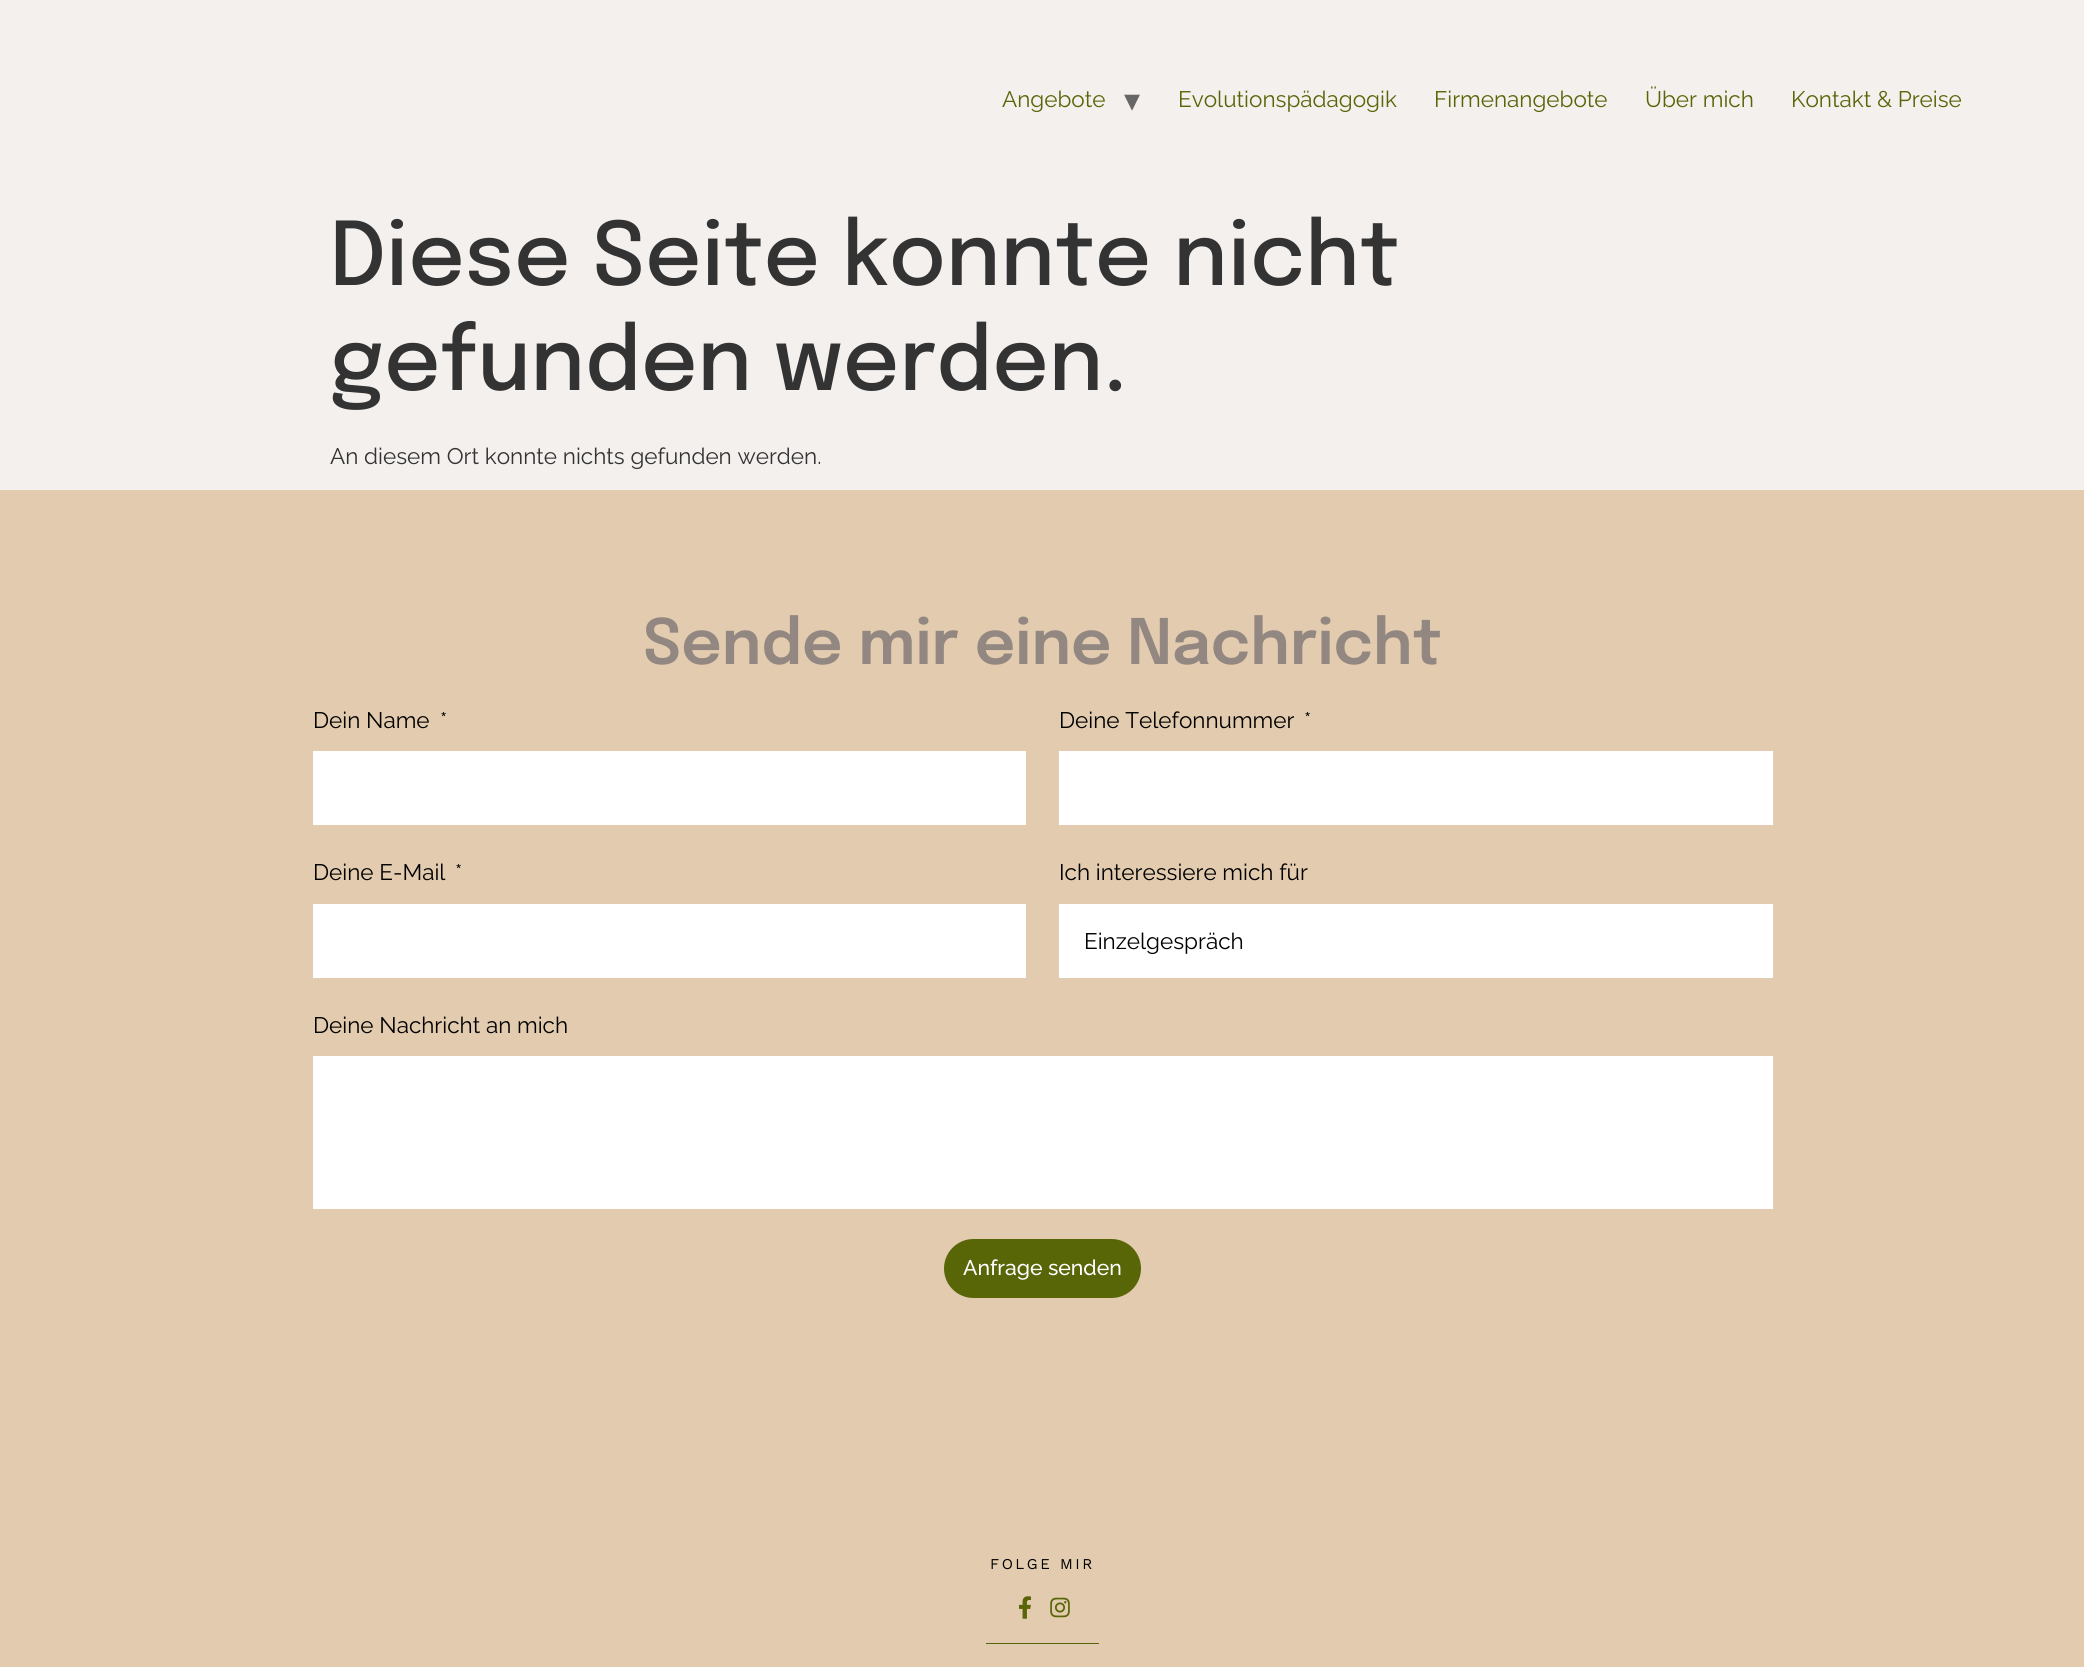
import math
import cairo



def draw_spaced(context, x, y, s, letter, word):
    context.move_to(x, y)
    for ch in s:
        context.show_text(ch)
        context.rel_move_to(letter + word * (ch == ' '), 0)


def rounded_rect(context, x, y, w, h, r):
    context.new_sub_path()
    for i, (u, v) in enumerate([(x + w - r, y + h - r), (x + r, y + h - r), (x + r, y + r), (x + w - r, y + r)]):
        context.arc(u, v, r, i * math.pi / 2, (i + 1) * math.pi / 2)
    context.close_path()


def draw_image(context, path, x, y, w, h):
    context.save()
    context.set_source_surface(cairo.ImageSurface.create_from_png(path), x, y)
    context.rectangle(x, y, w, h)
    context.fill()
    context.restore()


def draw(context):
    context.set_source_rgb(244 / 255, 240 / 255, 238 / 255)
    context.paint()
    context.set_source_rgb(226 / 255, 203 / 255, 174 / 255)
    context.rectangle(0, 490, 2084, 1177)
    context.fill()
    context.set_source_rgb(1, 1, 1)
    context.rectangle(313, 751, 713, 74)
    context.fill()
    context.rectangle(1059, 751, 714, 74)
    context.fill()
    context.rectangle(313, 904, 713, 74)
    context.fill()
    context.rectangle(1059, 904, 714, 74)
    context.fill()
    context.rectangle(313, 1056, 1460, 153)
    context.fill()
    context.set_source_rgb(88 / 255, 102 / 255, 8 / 255)
    rounded_rect(context, 944, 1239, 197, 59, 29.5)
    context.fill()
    draw_image(context, "images/1.png", 1019, 1596, 12, 23)
    draw_image(context, "images/2.png", 1050, 1597, 20, 21)
    context.rectangle(986, 1643, 113, 1)
    context.fill()
    context.select_font_face("Raleway")
    context.set_font_size(22.5)
    context.move_to(1002, 107)
    context.show_text("Angebote")
    context.select_font_face("DejaVu Sans")
    context.set_font_size(32)
    context.set_source_rgb(102 / 255, 102 / 255, 102 / 255)
    context.move_to(1124, 111)
    context.show_text("▾")
    context.select_font_face("Raleway")
    context.set_font_size(22.5)
    context.set_source_rgb(88 / 255, 102 / 255, 8 / 255)
    context.move_to(1178, 107)
    context.show_text("Evolutionspädagogik")
    context.move_to(1434, 107)
    context.show_text("Firmenangebote")
    context.move_to(1645, 107)
    context.show_text("Über mich")
    context.move_to(1791, 107)
    context.show_text("Kontakt & Preise")
    context.select_font_face("Epilogue Medium")
    context.set_font_size(87.5)
    context.set_source_rgb(51 / 255, 51 / 255, 51 / 255)
    context.move_to(330, 285)
    context.show_text("Diese Seite konnte nicht")
    context.move_to(330, 390)
    context.show_text("gefunden werden.")
    context.select_font_face("Raleway")
    context.set_font_size(22.5)
    context.move_to(330, 464)
    context.show_text("An diesem Ort konnte nichts gefunden werden.")
    context.select_font_face("Epilogue SemiBold")
    context.set_font_size(62.5)
    context.set_source_rgb(146 / 255, 135 / 255, 129 / 255)
    context.move_to(643, 664)
    context.show_text("Sende mir eine Nachricht")
    context.select_font_face("Raleway")
    context.set_font_size(22.5)
    context.set_source_rgb(0, 0, 0)
    context.move_to(313, 728)
    context.show_text("Dein Name")
    context.move_to(440, 728)
    context.show_text("*")
    context.move_to(1059, 728)
    context.show_text("Deine Telefonnummer")
    context.move_to(1304, 728)
    context.show_text("*")
    context.move_to(313, 880)
    context.show_text("Deine E-Mail")
    context.move_to(455, 880)
    context.show_text("*")
    context.move_to(1059, 880)
    context.show_text("Ich interessiere mich für")
    context.move_to(1084, 949)
    context.show_text("Einzelgespräch")
    context.move_to(313, 1033)
    context.show_text("Deine Nachricht an mich")
    context.select_font_face("Raleway Medium")
    context.set_font_size(21.25)
    context.set_source_rgb(1, 1, 1)
    context.move_to(963, 1275)
    context.show_text("Anfrage senden")
    context.select_font_face("Work Sans")
    context.set_font_size(15)
    context.set_source_rgb(0, 0, 0)
    draw_spaced(context, 990, 1569, "FOLGE MIR", 2.5, 0)


surface = cairo.ImageSurface(cairo.Format.RGB24, 2084, 1667)
context = cairo.Context(surface)
options = cairo.FontOptions()
options.set_hint_metrics(cairo.HintMetrics.OFF)
options.set_hint_style(cairo.HintStyle.NONE)
context.set_font_options(options)
context.set_miter_limit(4)
draw(context)
surface.write_to_png("out.png")
